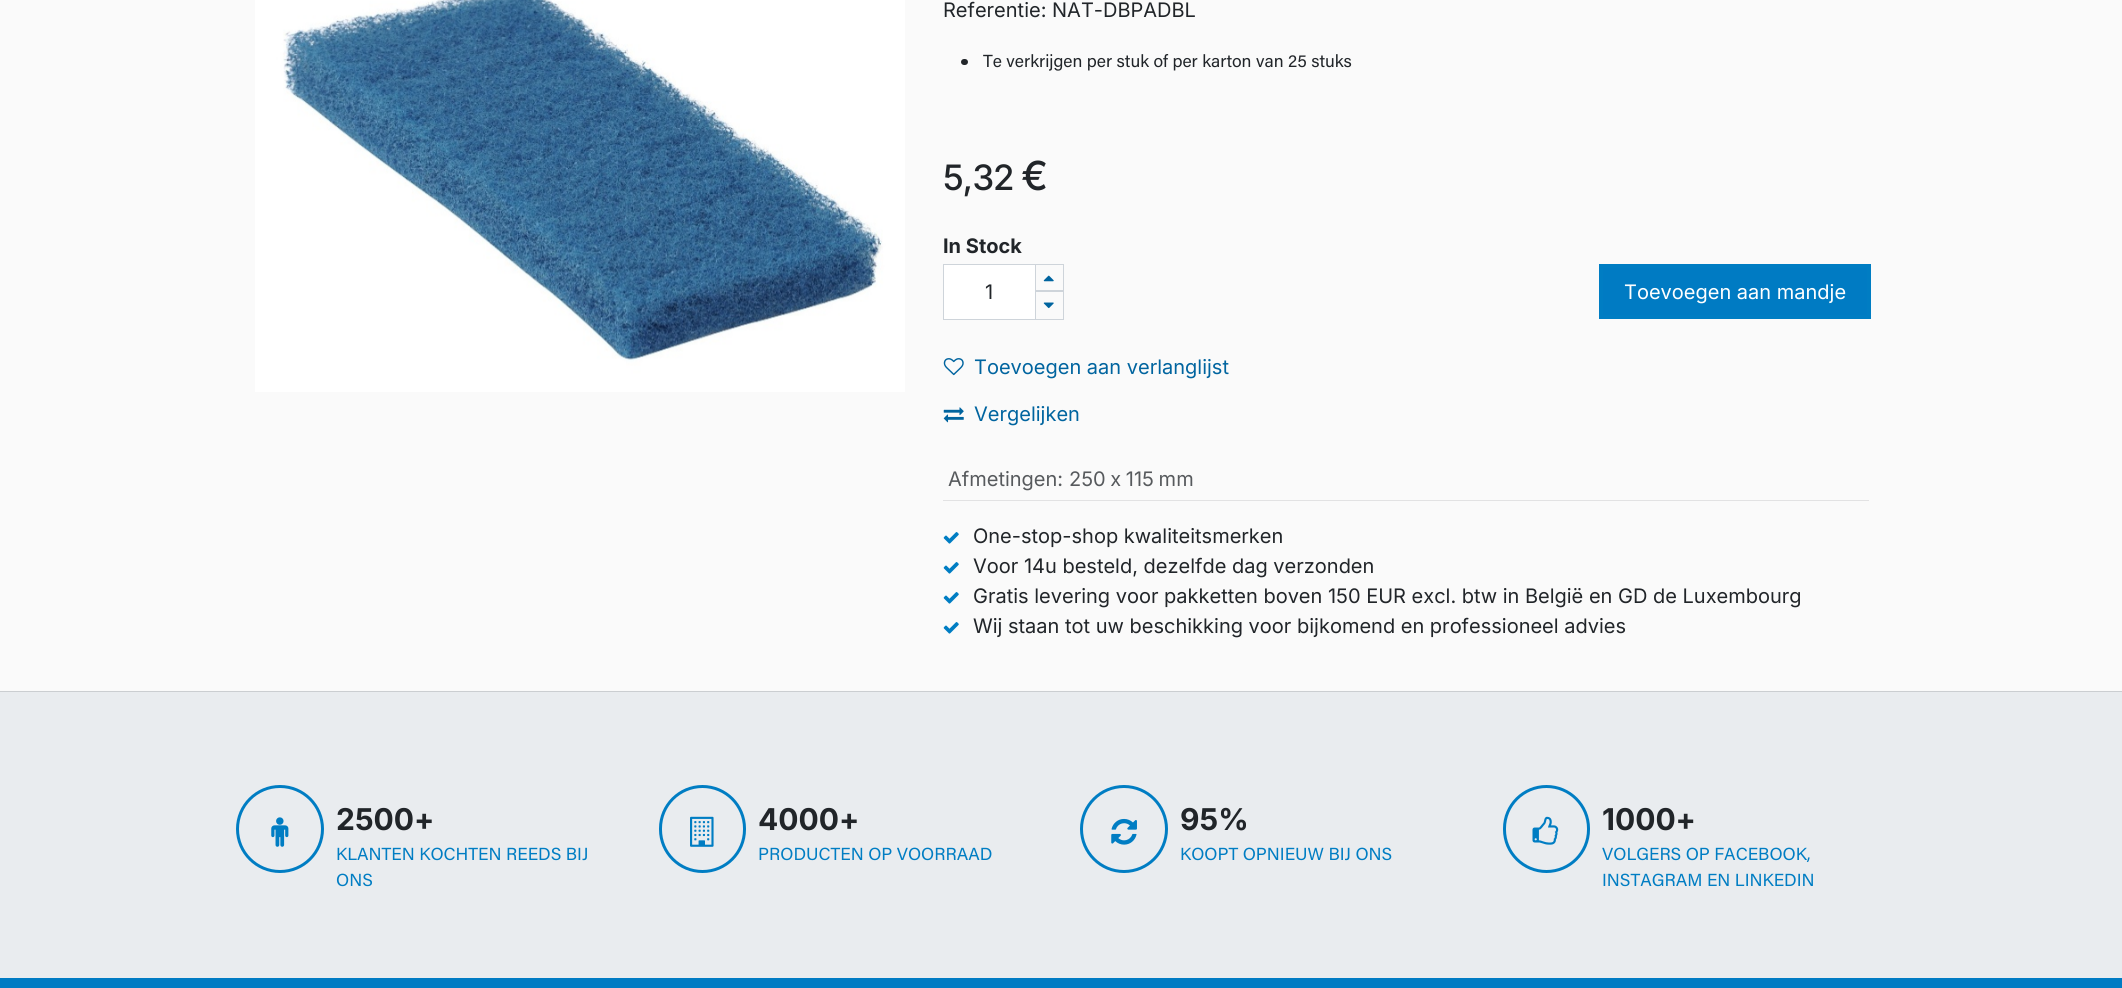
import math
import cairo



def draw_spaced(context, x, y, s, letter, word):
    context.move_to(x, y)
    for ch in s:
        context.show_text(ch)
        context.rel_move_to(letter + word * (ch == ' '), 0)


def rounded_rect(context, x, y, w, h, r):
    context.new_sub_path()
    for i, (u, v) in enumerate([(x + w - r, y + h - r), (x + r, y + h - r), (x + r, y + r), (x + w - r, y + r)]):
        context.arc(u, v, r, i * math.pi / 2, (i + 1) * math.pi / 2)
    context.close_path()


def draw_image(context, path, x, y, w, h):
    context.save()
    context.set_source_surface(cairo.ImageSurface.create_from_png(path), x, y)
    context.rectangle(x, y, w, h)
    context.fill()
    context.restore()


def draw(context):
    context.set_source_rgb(250 / 255, 250 / 255, 250 / 255)
    context.paint()
    draw_image(context, "images/1.png", 255, 0, 650, 392)
    context.set_source_rgb(33 / 255, 37 / 255, 41 / 255)
    rounded_rect(context, 961, 59, 7, 6, 3)
    context.fill()
    context.set_source_rgb(1, 1, 1)
    context.rectangle(943.5, 264.5, 92, 55)
    context.fill_preserve()
    context.set_source_rgb(206 / 255, 212 / 255, 218 / 255)
    context.set_line_width(1)
    context.stroke()
    context.rectangle(1035.5, 264.5, 28, 26)
    context.stroke()
    draw_image(context, "images/2.png", 1043, 275, 11, 7)
    context.rectangle(1035.5, 291.5, 28, 28)
    context.stroke()
    draw_image(context, "images/3.png", 1043, 302, 11, 7)
    context.rectangle(1601, 266, 268, 51)
    context.set_source_rgb(0, 125 / 255, 195 / 255)
    context.set_line_width(4)
    context.stroke()
    context.set_source_rgb(0, 123 / 255, 195 / 255)
    context.rectangle(1603, 268, 264, 47)
    context.fill()
    draw_image(context, "images/4.png", 943, 358, 21, 18)
    draw_image(context, "images/5.png", 943, 407, 21, 16)
    context.set_source_rgb(226 / 255, 226 / 255, 227 / 255)
    context.rectangle(943, 500, 926, 1)
    context.fill()
    draw_image(context, "images/6.png", 943, 532, 16, 12)
    draw_image(context, "images/6.png", 943, 562, 16, 12)
    draw_image(context, "images/6.png", 943, 592, 16, 12)
    draw_image(context, "images/6.png", 943, 622, 16, 12)
    context.set_source_rgb(233 / 255, 236 / 255, 239 / 255)
    context.rectangle(0, 692, 2122, 286)
    context.fill()
    context.set_source_rgb(203 / 255, 206 / 255, 209 / 255)
    context.rectangle(0, 691, 2122, 1)
    context.fill()
    context.arc(280, 829, 42.5, 0, 2 * math.pi)
    context.set_source_rgb(0, 125 / 255, 195 / 255)
    context.set_line_width(3)
    context.stroke()
    draw_image(context, "images/7.png", 271, 817, 18, 30)
    rounded_rect(context, 660.5, 786.5, 84, 85, 42)
    context.stroke()
    draw_image(context, "images/8.png", 690, 816, 24, 31)
    context.arc(1124, 829, 42.5, 0, 2 * math.pi)
    context.stroke()
    draw_image(context, "images/9.png", 1111, 818, 26, 27)
    rounded_rect(context, 1504.5, 786.5, 84, 85, 42)
    context.stroke()
    draw_image(context, "images/10.png", 1532, 816, 27, 29)
    context.set_source_rgb(0, 123 / 255, 195 / 255)
    context.rectangle(0, 978, 2122, 10)
    context.fill()
    context.select_font_face("Inter")
    context.set_font_size(20)
    context.set_source_rgb(33 / 255, 37 / 255, 41 / 255)
    context.move_to(943, 17)
    context.show_text("Referentie: NAT-DBPADBL")
    context.select_font_face("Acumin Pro")
    context.set_font_size(17.5)
    context.move_to(983, 67)
    context.show_text("Te verkrijgen per stuk of per karton van 25 stuks")
    context.select_font_face("Inter Tight Medium")
    context.set_font_size(35)
    context.move_to(943, 190)
    context.show_text("5,32")
    context.set_font_size(40)
    context.move_to(1022, 190)
    context.show_text("€")
    context.select_font_face("Inter", cairo.FontSlant.NORMAL, cairo.FontWeight.BOLD)
    context.set_font_size(20)
    context.move_to(943, 253)
    context.show_text("In Stock")
    context.select_font_face("Inter")
    context.move_to(985, 299)
    context.show_text("1")
    context.set_source_rgb(1, 1, 1)
    context.move_to(1624, 299)
    context.show_text("Toevoegen aan mandje")
    context.set_source_rgb(0, 100 / 255, 159 / 255)
    context.move_to(974, 374)
    context.show_text("Toevoegen aan verlanglijst")
    context.move_to(974, 421)
    context.show_text("Vergelijken")
    context.set_source_rgb(87 / 255, 90 / 255, 93 / 255)
    context.move_to(948, 486)
    context.show_text("Afmetingen:")
    draw_spaced(context, 1069, 486, "250 x 115 mm", 0, -1)
    context.set_source_rgb(33 / 255, 37 / 255, 41 / 255)
    context.move_to(973, 543)
    context.show_text("One-stop-shop kwaliteitsmerken")
    context.move_to(973, 573)
    context.show_text("Voor 14u besteld, dezelfde dag verzonden")
    context.move_to(973, 603)
    context.show_text("Gratis levering voor pakketten boven 150 EUR excl. btw in België en GD de Luxembourg")
    context.move_to(973, 633)
    context.show_text("Wij staan tot uw beschikking voor bijkomend en professioneel advies")
    context.select_font_face("Inter", cairo.FontSlant.NORMAL, cairo.FontWeight.BOLD)
    context.set_font_size(30)
    context.move_to(336, 830)
    context.show_text("2500+")
    context.select_font_face("Acumin Pro")
    context.set_font_size(17.5)
    context.set_source_rgb(0, 125 / 255, 195 / 255)
    context.move_to(336, 860)
    context.show_text("KLANTEN KOCHTEN REEDS BIJ")
    context.move_to(336, 886)
    context.show_text("ONS")
    context.select_font_face("Inter", cairo.FontSlant.NORMAL, cairo.FontWeight.BOLD)
    context.set_font_size(30)
    context.set_source_rgb(33 / 255, 37 / 255, 41 / 255)
    context.move_to(758, 830)
    context.show_text("4000+")
    context.select_font_face("Acumin Pro")
    context.set_font_size(17.5)
    context.set_source_rgb(0, 125 / 255, 195 / 255)
    context.move_to(758, 860)
    context.show_text("PRODUCTEN OP VOORRAAD")
    context.select_font_face("Inter", cairo.FontSlant.NORMAL, cairo.FontWeight.BOLD)
    context.set_font_size(30)
    context.set_source_rgb(33 / 255, 37 / 255, 41 / 255)
    context.move_to(1180, 830)
    context.show_text("95%")
    context.select_font_face("Acumin Pro")
    context.set_font_size(17.5)
    context.set_source_rgb(0, 125 / 255, 195 / 255)
    context.move_to(1180, 860)
    context.show_text("KOOPT OPNIEUW BIJ ONS")
    context.select_font_face("Inter", cairo.FontSlant.NORMAL, cairo.FontWeight.BOLD)
    context.set_font_size(30)
    context.set_source_rgb(33 / 255, 37 / 255, 41 / 255)
    context.move_to(1602, 830)
    context.show_text("1000+")
    context.select_font_face("Acumin Pro")
    context.set_font_size(17.5)
    context.set_source_rgb(0, 125 / 255, 195 / 255)
    context.move_to(1602, 860)
    context.show_text("VOLGERS OP FACEBOOK,")
    context.move_to(1602, 886)
    context.show_text("INSTAGRAM EN LINKEDIN")


surface = cairo.ImageSurface(cairo.Format.RGB24, 2122, 988)
context = cairo.Context(surface)
options = cairo.FontOptions()
options.set_hint_metrics(cairo.HintMetrics.OFF)
options.set_hint_style(cairo.HintStyle.NONE)
context.set_font_options(options)
context.set_miter_limit(4)
draw(context)
surface.write_to_png("out.png")
